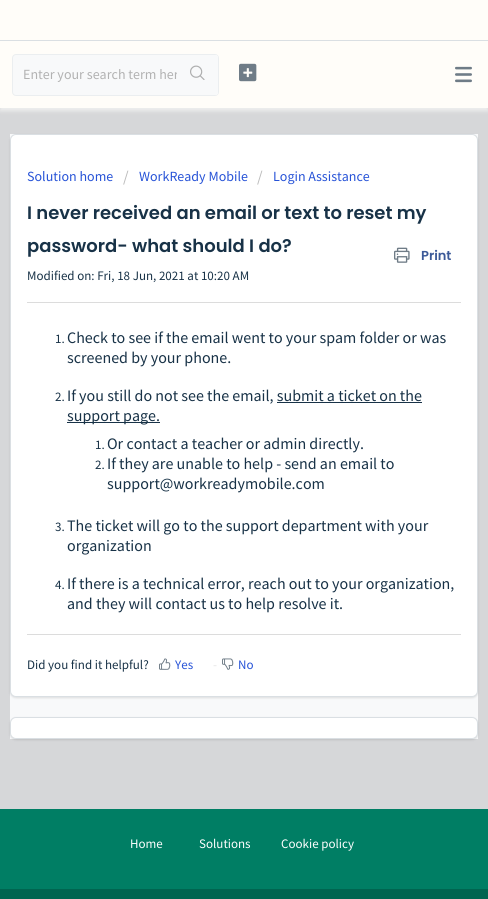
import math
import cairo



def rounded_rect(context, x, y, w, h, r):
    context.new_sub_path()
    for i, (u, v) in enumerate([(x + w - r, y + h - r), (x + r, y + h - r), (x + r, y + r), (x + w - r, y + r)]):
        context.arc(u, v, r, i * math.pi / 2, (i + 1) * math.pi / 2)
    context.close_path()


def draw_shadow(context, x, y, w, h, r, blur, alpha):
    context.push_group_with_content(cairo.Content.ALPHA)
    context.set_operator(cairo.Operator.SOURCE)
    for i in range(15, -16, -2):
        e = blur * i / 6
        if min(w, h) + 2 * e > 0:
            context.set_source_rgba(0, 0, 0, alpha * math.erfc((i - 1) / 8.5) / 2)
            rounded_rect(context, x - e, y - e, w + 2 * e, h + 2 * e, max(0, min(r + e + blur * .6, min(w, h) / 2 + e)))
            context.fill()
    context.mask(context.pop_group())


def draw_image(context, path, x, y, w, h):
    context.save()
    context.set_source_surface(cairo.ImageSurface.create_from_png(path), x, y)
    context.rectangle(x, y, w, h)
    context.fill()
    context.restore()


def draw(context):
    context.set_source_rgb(214 / 255, 215 / 255, 217 / 255)
    context.paint()
    context.set_source_rgb(1, 253 / 255, 249 / 255)
    context.rectangle(0, 0, 488, 40)
    context.fill()
    context.set_source_rgb(218 / 255, 223 / 255, 227 / 255)
    context.rectangle(0, 40, 488, 1)
    context.fill()
    context.set_source_rgb(238 / 255, 238 / 255, 238 / 255)
    draw_shadow(context, 0, 44, 488, 67, 0, 2, 1)
    context.set_source_rgb(1, 253 / 255, 249 / 255)
    context.rectangle(0, 41, 488, 67)
    context.fill()
    draw_image(context, "images/1.png", 455, 66, 17, 17)
    context.set_source_rgb(248 / 255, 249 / 255, 250 / 255)
    rounded_rect(context, 12.5, 54.5, 206, 41, 3.5)
    context.fill_preserve()
    context.set_source_rgb(235 / 255, 238 / 255, 240 / 255)
    context.set_line_width(1)
    context.stroke()
    draw_image(context, "images/3.png", 239, 63, 18, 19)
    context.set_source_rgb(248 / 255, 249 / 255, 250 / 255)
    context.rectangle(10, 134, 468, 605)
    context.fill()
    context.set_source_rgb(63 / 255, 63 / 255, 68 / 255)
    draw_shadow(context, 10, 135, 468, 563, 6, 1, 0.15)
    context.set_source_rgb(1, 1, 1)
    rounded_rect(context, 10.5, 134.5, 467, 562, 5.5)
    context.fill_preserve()
    context.set_source_rgb(218 / 255, 223 / 255, 227 / 255)
    context.stroke()
    draw_image(context, "images/4.png", 394, 247, 16, 16)
    context.set_source_rgb(220 / 255, 220 / 255, 220 / 255)
    context.rectangle(27, 302, 434, 1)
    context.fill()
    context.set_source_rgb(24 / 255, 50 / 255, 71 / 255)
    context.rectangle(277, 402, 145, 1)
    context.fill()
    context.rectangle(67, 422, 93, 1)
    context.fill()
    context.set_source_rgb(220 / 255, 220 / 255, 220 / 255)
    context.rectangle(27, 634, 434, 1)
    context.fill()
    draw_image(context, "images/5.png", 159, 658, 12, 12)
    draw_image(context, "images/6.png", 222, 658, 12, 12)
    context.set_source_rgb(63 / 255, 63 / 255, 68 / 255)
    draw_shadow(context, 10, 718, 468, 22, 6, 1, 0.15)
    context.set_source_rgb(1, 1, 1)
    rounded_rect(context, 10.5, 717.5, 467, 21, 5.5)
    context.fill_preserve()
    context.set_source_rgb(218 / 255, 223 / 255, 227 / 255)
    context.stroke()
    context.set_source_rgb(0, 126 / 255, 100 / 255)
    context.rectangle(0, 809, 488, 80)
    context.fill()
    context.set_source_rgb(0, 101 / 255, 80 / 255)
    context.rectangle(0, 889, 488, 10)
    context.fill()
    context.select_font_face("Source Sans Pro")
    context.set_font_size(14)
    context.set_source_rgb(178 / 255, 178 / 255, 178 / 255)
    context.move_to(23, 79)
    context.show_text("Enter your search term her")
    context.set_source_rgb(248 / 255, 249 / 255, 250 / 255)
    rounded_rect(context, 177, 55, 41, 40, 2)
    context.fill()
    draw_image(context, "images/2.png", 190, 65, 15, 15)
    context.set_source_rgb(39 / 255, 83 / 255, 215 / 255)
    context.move_to(27, 181)
    context.show_text("Solution home")
    context.set_font_size(16)
    context.set_source_rgb(187 / 255, 187 / 255, 187 / 255)
    context.move_to(123, 182)
    context.show_text("/")
    context.set_font_size(14)
    context.set_source_rgb(39 / 255, 83 / 255, 215 / 255)
    context.move_to(139, 181)
    context.show_text("WorkReady Mobile")
    context.set_font_size(16)
    context.set_source_rgb(187 / 255, 187 / 255, 187 / 255)
    context.move_to(257, 182)
    context.show_text("/")
    context.set_font_size(14)
    context.set_source_rgb(39 / 255, 83 / 255, 215 / 255)
    context.move_to(273, 181)
    context.show_text("Login Assistance")
    context.select_font_face("Poppins SemiBold")
    context.set_font_size(18)
    context.set_source_rgb(24 / 255, 50 / 255, 71 / 255)
    context.move_to(27, 219)
    context.show_text("I never received an email or text to reset my")
    context.move_to(27, 252)
    context.show_text("password- what should I do?")
    context.set_font_size(13)
    context.set_source_rgb(59 / 255, 89 / 255, 152 / 255)
    context.move_to(421, 260)
    context.show_text("Print")
    context.select_font_face("Source Sans Pro")
    context.set_source_rgb(24 / 255, 50 / 255, 71 / 255)
    context.move_to(27, 280)
    context.show_text("Modified on: Fri, 18 Jun, 2021 at 10:20 AM")
    context.move_to(55, 343)
    context.show_text("1.")
    context.set_font_size(16)
    context.move_to(67, 343)
    context.show_text("Check to see if the email went to your spam folder or was")
    context.move_to(67, 363)
    context.show_text("screened by your phone.")
    context.set_font_size(13)
    context.move_to(55, 401)
    context.show_text("2.")
    context.set_font_size(16)
    context.move_to(67, 401)
    context.show_text("If you still do not see the email, submit a ticket on the")
    context.move_to(67, 421)
    context.show_text("support page.")
    context.set_font_size(13)
    context.move_to(95, 449)
    context.show_text("1.")
    context.set_font_size(16)
    context.move_to(107, 449)
    context.show_text("Or contact a teacher or admin directly.")
    context.set_font_size(13)
    context.move_to(95, 469)
    context.show_text("2.")
    context.set_font_size(16)
    context.move_to(107, 469)
    context.show_text("If they are unable to help - send an email to")
    context.move_to(107, 489)
    context.show_text("support@workreadymobile.com")
    context.set_font_size(13)
    context.move_to(55, 531)
    context.show_text("3.")
    context.set_font_size(16)
    context.move_to(67, 531)
    context.show_text("The ticket will go to the support department with your")
    context.move_to(67, 551)
    context.show_text("organization")
    context.set_font_size(13)
    context.move_to(55, 589)
    context.show_text("4.")
    context.set_font_size(16)
    context.move_to(67, 589)
    context.show_text("If there is a technical error, reach out to your organization,")
    context.move_to(67, 609)
    context.show_text("and they will contact us to help resolve it.")
    context.set_font_size(13)
    context.move_to(27, 669)
    context.show_text("Did you find it helpful?")
    context.set_source_rgb(39 / 255, 83 / 255, 215 / 255)
    context.move_to(175, 669)
    context.show_text("Yes")
    context.set_source_rgb(229 / 255, 229 / 255, 229 / 255)
    context.move_to(213, 669)
    context.show_text("-")
    context.set_source_rgb(39 / 255, 83 / 255, 215 / 255)
    context.move_to(238, 669)
    context.show_text("No")
    context.set_source_rgb(1, 1, 1)
    context.move_to(130, 848)
    context.show_text("Home")
    context.move_to(199, 848)
    context.show_text("Solutions")
    context.move_to(281, 848)
    context.show_text("Cookie policy")


surface = cairo.ImageSurface(cairo.Format.RGB24, 488, 899)
context = cairo.Context(surface)
options = cairo.FontOptions()
options.set_hint_metrics(cairo.HintMetrics.OFF)
options.set_hint_style(cairo.HintStyle.NONE)
context.set_font_options(options)
context.set_miter_limit(4)
draw(context)
surface.write_to_png("out.png")
